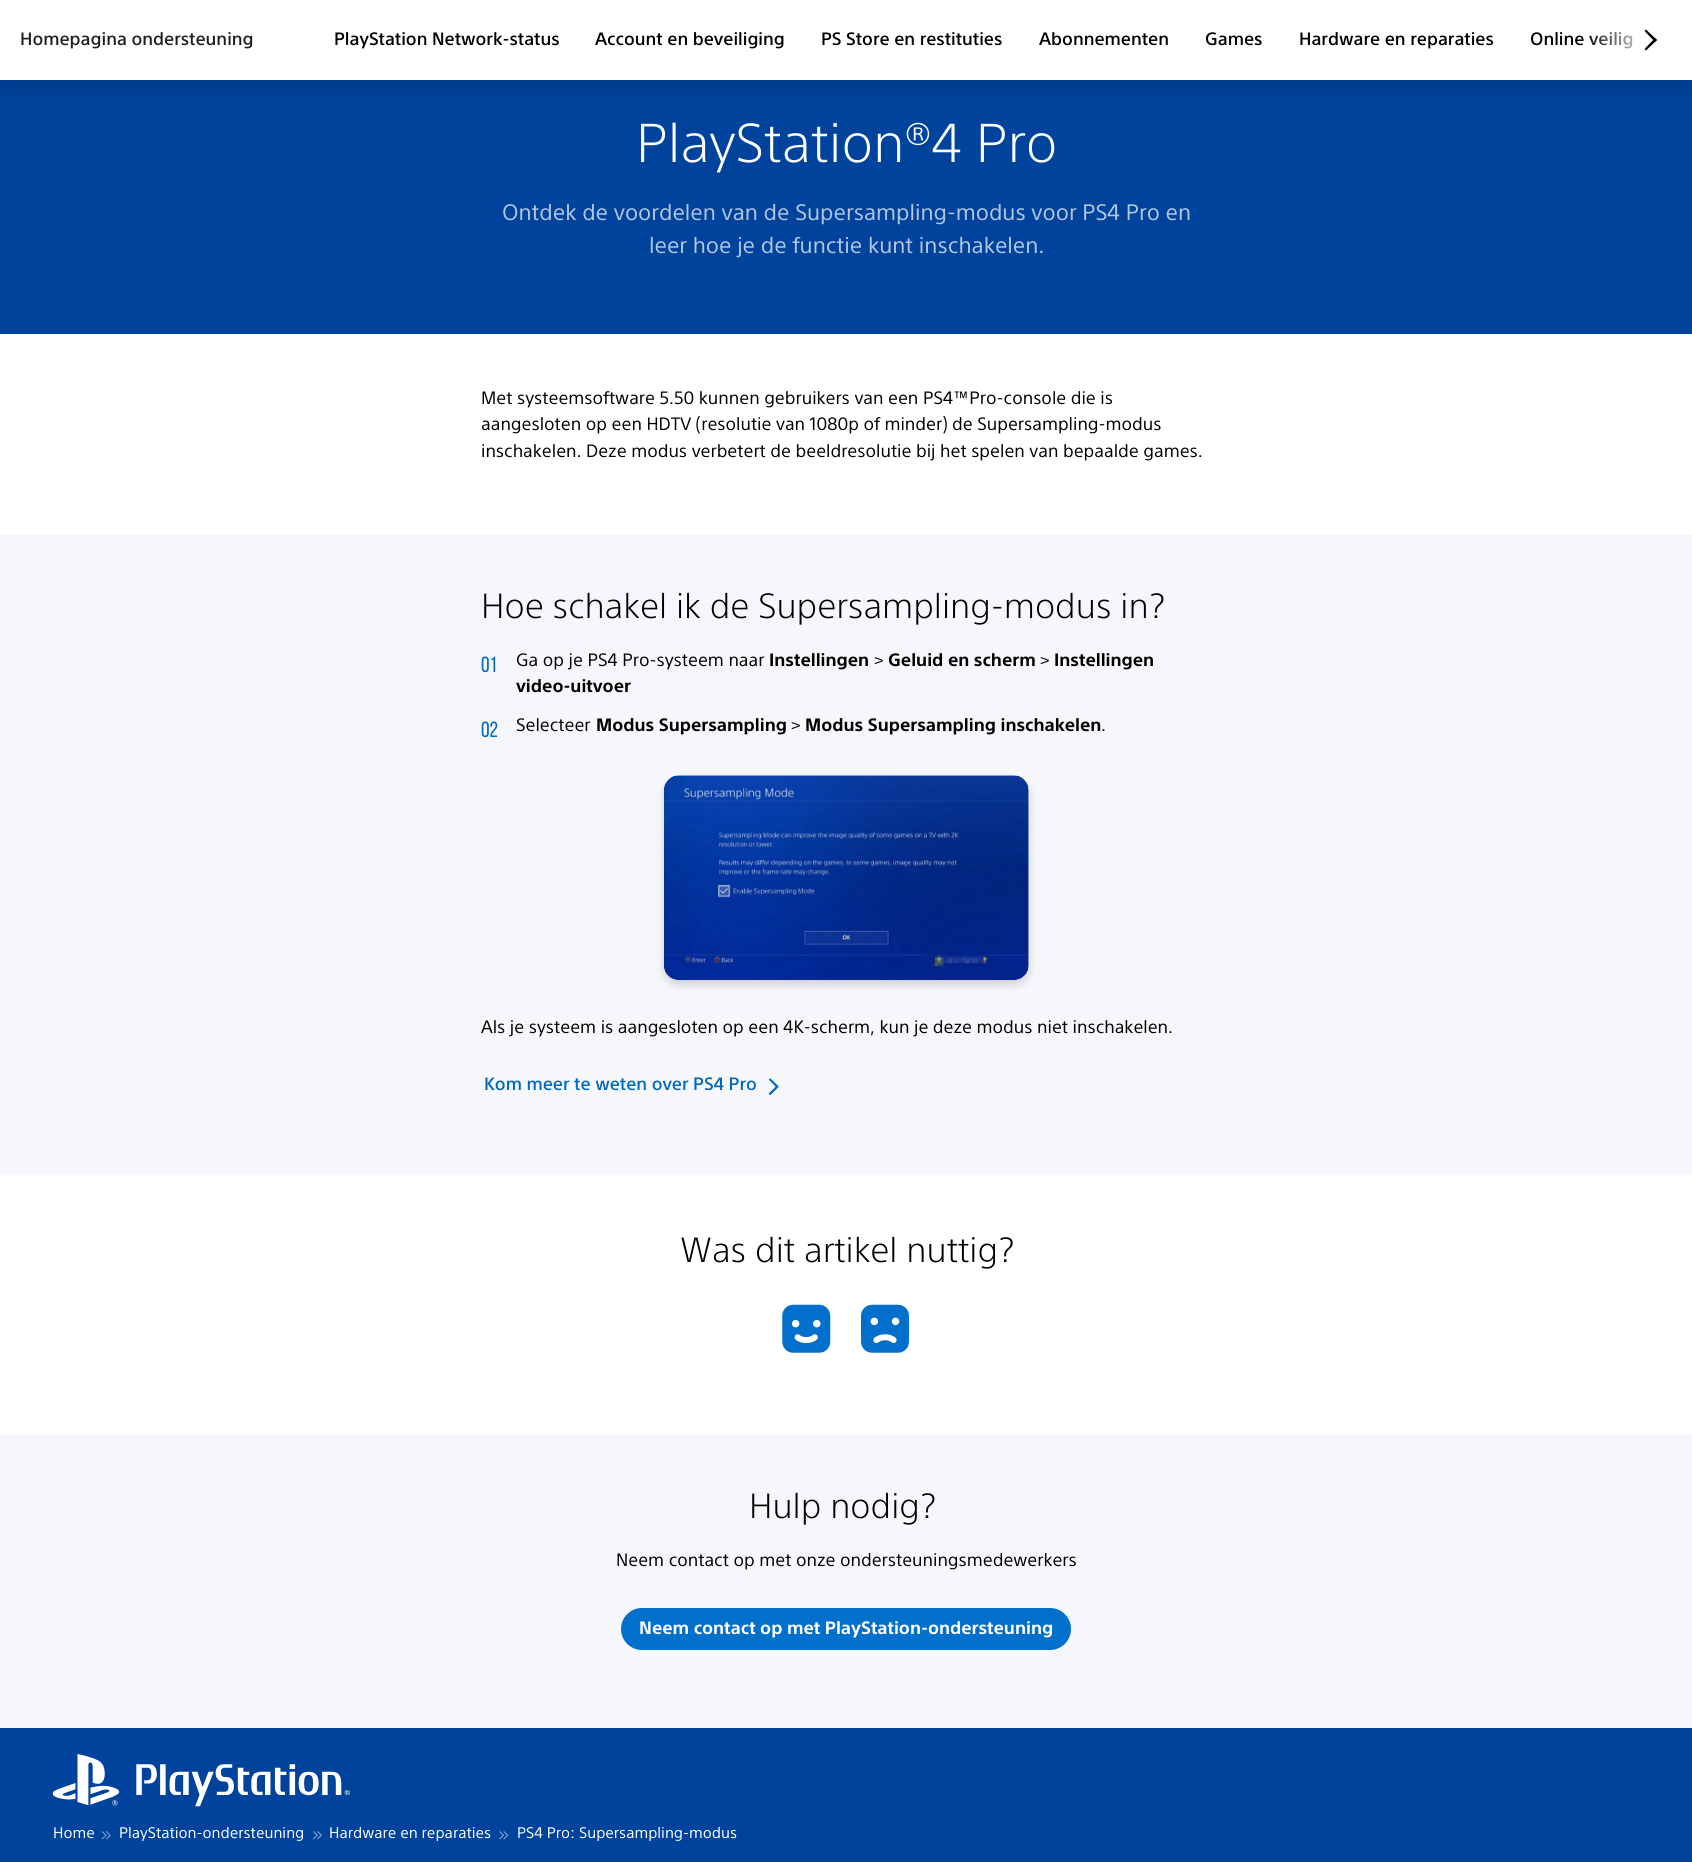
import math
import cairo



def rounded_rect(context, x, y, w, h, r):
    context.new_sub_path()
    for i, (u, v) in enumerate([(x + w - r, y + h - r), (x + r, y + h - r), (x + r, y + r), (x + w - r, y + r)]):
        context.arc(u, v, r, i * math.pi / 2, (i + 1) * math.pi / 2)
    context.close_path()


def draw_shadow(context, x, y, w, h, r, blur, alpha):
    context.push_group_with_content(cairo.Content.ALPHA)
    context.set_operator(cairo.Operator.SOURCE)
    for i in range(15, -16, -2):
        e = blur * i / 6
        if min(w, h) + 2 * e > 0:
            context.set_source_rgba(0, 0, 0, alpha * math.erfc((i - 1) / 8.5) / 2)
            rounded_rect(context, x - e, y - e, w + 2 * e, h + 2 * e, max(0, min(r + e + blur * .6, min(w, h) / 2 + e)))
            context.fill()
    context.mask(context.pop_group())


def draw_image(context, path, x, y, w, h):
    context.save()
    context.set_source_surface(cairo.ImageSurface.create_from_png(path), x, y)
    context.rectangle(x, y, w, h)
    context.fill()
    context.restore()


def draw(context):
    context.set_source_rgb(1, 1, 1)
    context.paint()
    context.set_source_rgb(0, 67 / 255, 156 / 255)
    context.rectangle(0, 80, 1692, 254)
    context.fill()
    context.save()
    context.rectangle(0, 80, 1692, 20)
    context.clip()
    context.set_source_rgb(0, 0, 0)
    draw_shadow(context, 0, 10, 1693, 80, 0, 10, 0.12)
    context.restore()
    context.set_source_rgb(0, 0, 0)
    context.new_path()
    context.move_to(1644.5, 31)
    context.line_to(1646, 29.5)
    context.line_to(1657, 40)
    context.line_to(1655, 42)
    context.close_path()
    context.fill()
    context.new_path()
    context.move_to(1644.5, 49)
    context.line_to(1655, 38)
    context.line_to(1657, 40)
    context.line_to(1646, 50.5)
    context.close_path()
    context.fill()
    context.set_source_rgb(245 / 255, 247 / 255, 250 / 255)
    context.rectangle(0, 535, 1692, 639)
    context.fill()
    context.set_source_rgb(0, 0, 0)
    draw_shadow(context, 664, 780, 365, 205, 15, 4.5, 0.16)
    draw_image(context, "images/1.png", 664, 775, 365, 205)
    draw_image(context, "images/2.png", 768, 1078, 11, 17)
    draw_image(context, "images/3.png", 782, 1304, 49, 49)
    draw_image(context, "images/4.png", 861, 1304, 48, 49)
    context.set_source_rgb(245 / 255, 247 / 255, 250 / 255)
    context.rectangle(0, 1435, 1692, 293)
    context.fill()
    context.set_source_rgb(0, 112 / 255, 204 / 255)
    rounded_rect(context, 621, 1608, 450, 42, 21)
    context.fill()
    context.set_source_rgb(0, 67 / 255, 156 / 255)
    context.rectangle(0, 1728, 1692, 134)
    context.fill()
    draw_image(context, "images/5.png", 52, 1754, 298, 53)
    draw_image(context, "images/6.png", 101, 1831, 10, 9)
    draw_image(context, "images/7.png", 313, 1831, 9, 9)
    draw_image(context, "images/8.png", 499, 1831, 10, 9)
    context.select_font_face("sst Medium")
    context.set_font_size(17.5)
    context.set_source_rgb(31 / 255, 31 / 255, 31 / 255)
    context.move_to(20, 45)
    context.show_text("Homepagina ondersteuning")
    context.set_source_rgb(0, 0, 0)
    context.move_to(334, 45)
    context.show_text("PlayStation Network-status")
    context.move_to(595, 45)
    context.show_text("Account en beveiliging")
    context.move_to(821, 45)
    context.show_text("PS Store en restituties")
    context.move_to(1039, 45)
    context.show_text("Abonnementen")
    context.move_to(1205, 45)
    context.show_text("Games")
    context.move_to(1299, 45)
    context.show_text("Hardware en reparaties")
    context.move_to(1530, 45)
    context.show_text("Online veilig")
    gradient = cairo.LinearGradient(1673, 40, 1585, 40)
    gradient.add_color_stop_rgba(0.2, 1, 1, 1, 1)
    gradient.add_color_stop_rgba(1, 1, 1, 1, 0)
    context.set_source(gradient)
    context.rectangle(1589, 32, 44, 17)
    context.fill()
    context.select_font_face("sst Light")
    context.set_font_size(53.5)
    context.set_source_rgb(1, 1, 1)
    context.move_to(636, 162)
    context.show_text("PlayStation®4 Pro")
    context.select_font_face("sst")
    context.set_font_size(21.9)
    context.set_source_rgb(179 / 255, 199 / 255, 225 / 255)
    context.move_to(502, 220)
    context.show_text("Ontdek de voordelen van de Supersampling-modus voor PS4 Pro en")
    context.move_to(649, 253)
    context.show_text("leer hoe je de functie kunt inschakelen.")
    context.set_font_size(17.5)
    context.set_source_rgb(0, 0, 0)
    context.move_to(481, 404)
    context.show_text("Met systeemsoftware 5.50 kunnen gebruikers van een PS4™Pro-console die is")
    context.move_to(481, 430)
    context.show_text("aangesloten op een HDTV (resolutie van 1080p of minder) de Supersampling-modus")
    context.move_to(481, 457)
    context.show_text("inschakelen. Deze modus verbetert de beeldresolutie bij het spelen van bepaalde games.")
    context.select_font_face("sst Light")
    context.set_font_size(34.2)
    context.move_to(481, 618)
    context.show_text("Hoe schakel ik de Supersampling-modus in?")
    context.select_font_face("Bebas Neue")
    context.set_font_size(21.9)
    context.set_source_rgb(0, 104 / 255, 189 / 255)
    context.move_to(481, 672)
    context.show_text("01")
    context.select_font_face("sst")
    context.set_font_size(17.5)
    context.set_source_rgb(0, 0, 0)
    context.move_to(516, 666)
    context.show_text("Ga op je PS4 Pro-systeem naar")
    context.select_font_face("sst", cairo.FontSlant.NORMAL, cairo.FontWeight.BOLD)
    context.move_to(769, 666)
    context.show_text("Instellingen")
    context.select_font_face("sst")
    context.move_to(874, 666)
    context.show_text(">")
    context.select_font_face("sst", cairo.FontSlant.NORMAL, cairo.FontWeight.BOLD)
    context.move_to(888, 666)
    context.show_text("Geluid en scherm")
    context.select_font_face("sst")
    context.move_to(1040, 666)
    context.show_text(">")
    context.select_font_face("sst", cairo.FontSlant.NORMAL, cairo.FontWeight.BOLD)
    context.move_to(1054, 666)
    context.show_text("Instellingen")
    context.move_to(516, 692)
    context.show_text("video-uitvoer")
    context.select_font_face("Bebas Neue")
    context.set_font_size(21.9)
    context.set_source_rgb(0, 104 / 255, 189 / 255)
    context.move_to(481, 737)
    context.show_text("02")
    context.select_font_face("sst")
    context.set_font_size(17.5)
    context.set_source_rgb(0, 0, 0)
    context.move_to(516, 731)
    context.show_text("Selecteer")
    context.select_font_face("sst", cairo.FontSlant.NORMAL, cairo.FontWeight.BOLD)
    context.move_to(596, 731)
    context.show_text("Modus Supersampling")
    context.select_font_face("sst")
    context.move_to(791, 731)
    context.show_text(">")
    context.select_font_face("sst", cairo.FontSlant.NORMAL, cairo.FontWeight.BOLD)
    context.move_to(805, 731)
    context.show_text("Modus Supersampling inschakelen")
    context.select_font_face("sst")
    context.move_to(1101, 731)
    context.show_text(".")
    context.move_to(481, 1033)
    context.show_text("Als je systeem is aangesloten op een 4K-scherm, kun je deze modus niet inschakelen.")
    context.select_font_face("sst Medium")
    context.set_source_rgb(0, 104 / 255, 189 / 255)
    context.move_to(484, 1090)
    context.show_text("Kom meer te weten over PS4 Pro")
    context.select_font_face("sst Light")
    context.set_font_size(34.2)
    context.set_source_rgb(0, 0, 0)
    context.move_to(680, 1262)
    context.show_text("Was dit artikel nuttig?")
    context.move_to(749, 1518)
    context.show_text("Hulp nodig?")
    context.select_font_face("sst")
    context.set_font_size(17.5)
    context.move_to(616, 1566)
    context.show_text("Neem contact op met onze ondersteuningsmedewerkers")
    context.select_font_face("sst", cairo.FontSlant.NORMAL, cairo.FontWeight.BOLD)
    context.set_source_rgb(1, 1, 1)
    context.move_to(639, 1634)
    context.show_text("Neem contact op met PlayStation-ondersteuning")
    context.select_font_face("sst")
    context.set_font_size(15)
    context.move_to(53, 1838)
    context.show_text("Home")
    context.move_to(119, 1838)
    context.show_text("PlayStation-ondersteuning")
    context.move_to(329, 1838)
    context.show_text("Hardware en reparaties")
    context.move_to(517, 1838)
    context.show_text("PS4 Pro: Supersampling-modus")


surface = cairo.ImageSurface(cairo.Format.RGB24, 1692, 1862)
context = cairo.Context(surface)
options = cairo.FontOptions()
options.set_hint_metrics(cairo.HintMetrics.OFF)
options.set_hint_style(cairo.HintStyle.NONE)
context.set_font_options(options)
context.set_miter_limit(4)
draw(context)
surface.write_to_png("out.png")
